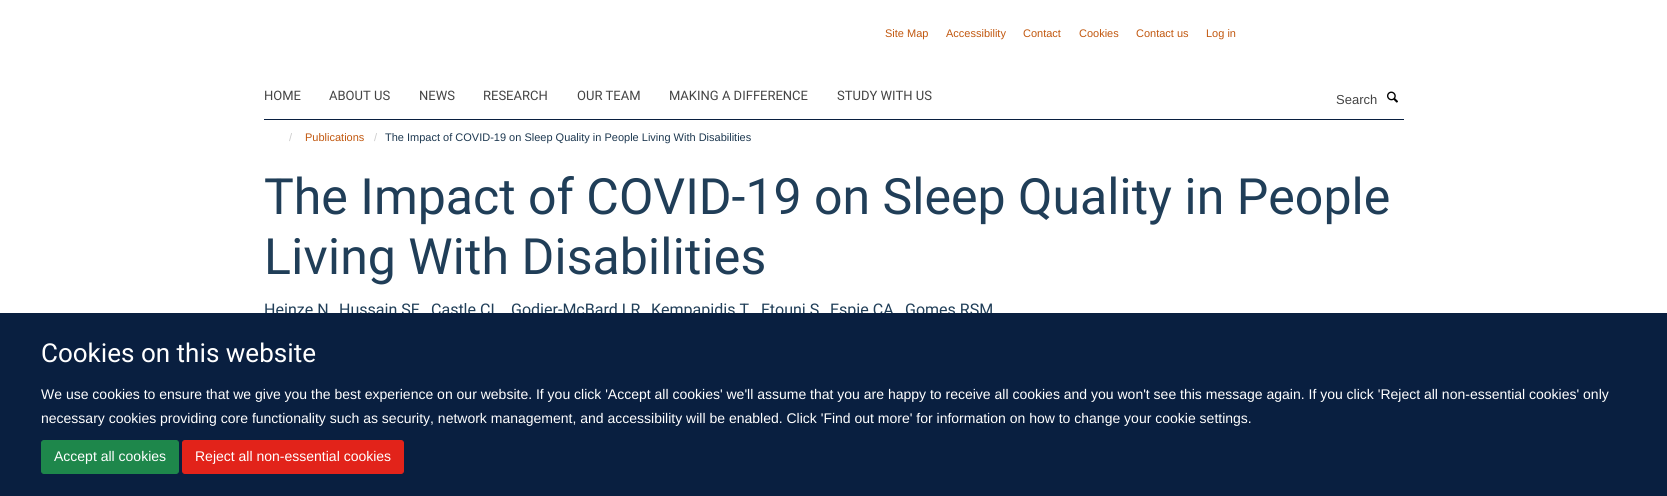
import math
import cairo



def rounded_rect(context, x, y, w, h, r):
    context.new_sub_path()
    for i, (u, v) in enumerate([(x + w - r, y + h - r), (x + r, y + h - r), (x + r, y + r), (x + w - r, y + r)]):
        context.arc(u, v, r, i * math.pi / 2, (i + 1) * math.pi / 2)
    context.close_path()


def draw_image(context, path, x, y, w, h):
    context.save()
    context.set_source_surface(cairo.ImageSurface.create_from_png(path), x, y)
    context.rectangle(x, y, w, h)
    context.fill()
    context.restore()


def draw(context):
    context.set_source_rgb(1, 1, 1)
    context.paint()
    context.set_source_rgb(9 / 255, 31 / 255, 64 / 255)
    context.rectangle(264, 119, 1140, 1)
    context.fill()
    draw_image(context, "images/1.png", 1387, 91, 11, 12)
    context.select_font_face("Liberation Sans")
    context.set_font_size(11)
    context.set_source_rgb(193 / 255, 87 / 255, 14 / 255)
    context.move_to(885, 37)
    context.show_text("Site Map")
    context.move_to(946, 37)
    context.show_text("Accessibility")
    context.move_to(1023, 37)
    context.show_text("Contact")
    context.move_to(1079, 37)
    context.show_text("Cookies")
    context.move_to(1136, 37)
    context.show_text("Contact us")
    context.move_to(1206, 37)
    context.show_text("Log in")
    context.select_font_face("Heebo")
    context.set_font_size(13)
    context.set_source_rgb(68 / 255, 68 / 255, 68 / 255)
    context.move_to(264, 100)
    context.show_text("HOME")
    context.move_to(329, 100)
    context.show_text("ABOUT US")
    context.move_to(419, 100)
    context.show_text("NEWS")
    context.move_to(483, 100)
    context.show_text("RESEARCH")
    context.move_to(577, 100)
    context.show_text("OUR TEAM")
    context.move_to(669, 100)
    context.show_text("MAKING A DIFFERENCE")
    context.move_to(837, 100)
    context.show_text("STUDY WITH US")
    context.select_font_face("Liberation Sans")
    context.move_to(1336, 104)
    context.show_text("Search")
    context.set_font_size(11)
    context.set_source_rgb(204 / 255, 204 / 255, 204 / 255)
    context.move_to(289, 141)
    context.show_text("/")
    context.set_source_rgb(193 / 255, 87 / 255, 14 / 255)
    context.move_to(305, 141)
    context.show_text("Publications")
    context.set_source_rgb(204 / 255, 204 / 255, 204 / 255)
    context.move_to(374, 141)
    context.show_text("/")
    context.set_source_rgb(29 / 255, 56 / 255, 80 / 255)
    context.move_to(385, 141)
    context.show_text("The Impact of COVID-19 on Sleep Quality in People Living With Disabilities")
    context.select_font_face("Heebo")
    context.set_font_size(50)
    context.set_source_rgb(32 / 255, 62 / 255, 88 / 255)
    context.move_to(264, 214)
    context.show_text("The Impact of COVID-19 on Sleep Quality in People")
    context.move_to(264, 274)
    context.show_text("Living With Disabilities")
    context.set_font_size(16)
    context.move_to(264, 315)
    context.show_text("Heinze N")
    context.move_to(339, 315)
    context.show_text("Hussain SF")
    context.move_to(431, 315)
    context.show_text("Castle CL")
    context.move_to(511, 315)
    context.show_text("Godier-McBard LR")
    context.move_to(651, 315)
    context.show_text("Kempapidis T")
    context.move_to(761, 315)
    context.show_text("Ftouni S")
    context.move_to(830, 315)
    context.show_text("Espie CA")
    context.move_to(905, 315)
    context.show_text("Gomes RSM")
    context.set_source_rgb(9 / 255, 31 / 255, 64 / 255)
    context.rectangle(0, 313, 1667, 183)
    context.fill()
    context.set_font_size(26)
    context.set_source_rgb(1, 1, 1)
    context.move_to(41, 362)
    context.show_text("Cookies on this website")
    context.select_font_face("Liberation Sans")
    context.set_font_size(14)
    context.move_to(41, 399)
    context.show_text("We use cookies to ensure that we give you the best experience on our website. If you click 'Accept all cookies' we'll assume that you are happy to receive all cookies and you won't see this message again. If you click 'Reject all non-essential cookies' only")
    context.move_to(41, 423)
    context.show_text("necessary cookies providing core functionality such as security, network management, and accessibility will be enabled. Click 'Find out more' for information on how to change your cookie settings.")
    context.set_source_rgb(30 / 255, 135 / 255, 75 / 255)
    rounded_rect(context, 41.5, 440.5, 137, 33, 2.5)
    context.fill_preserve()
    context.set_line_width(1)
    context.stroke()
    context.set_source_rgb(1, 1, 1)
    context.move_to(54, 461)
    context.show_text("Accept all cookies")
    context.set_source_rgb(226 / 255, 35 / 255, 26 / 255)
    rounded_rect(context, 182.5, 440.5, 221, 33, 2.5)
    context.fill_preserve()
    context.stroke()
    context.set_source_rgb(1, 1, 1)
    context.move_to(195, 461)
    context.show_text("Reject all non-essential cookies")


surface = cairo.ImageSurface(cairo.Format.RGB24, 1667, 496)
context = cairo.Context(surface)
options = cairo.FontOptions()
options.set_hint_metrics(cairo.HintMetrics.OFF)
options.set_hint_style(cairo.HintStyle.NONE)
context.set_font_options(options)
context.set_miter_limit(4)
draw(context)
surface.write_to_png("out.png")
